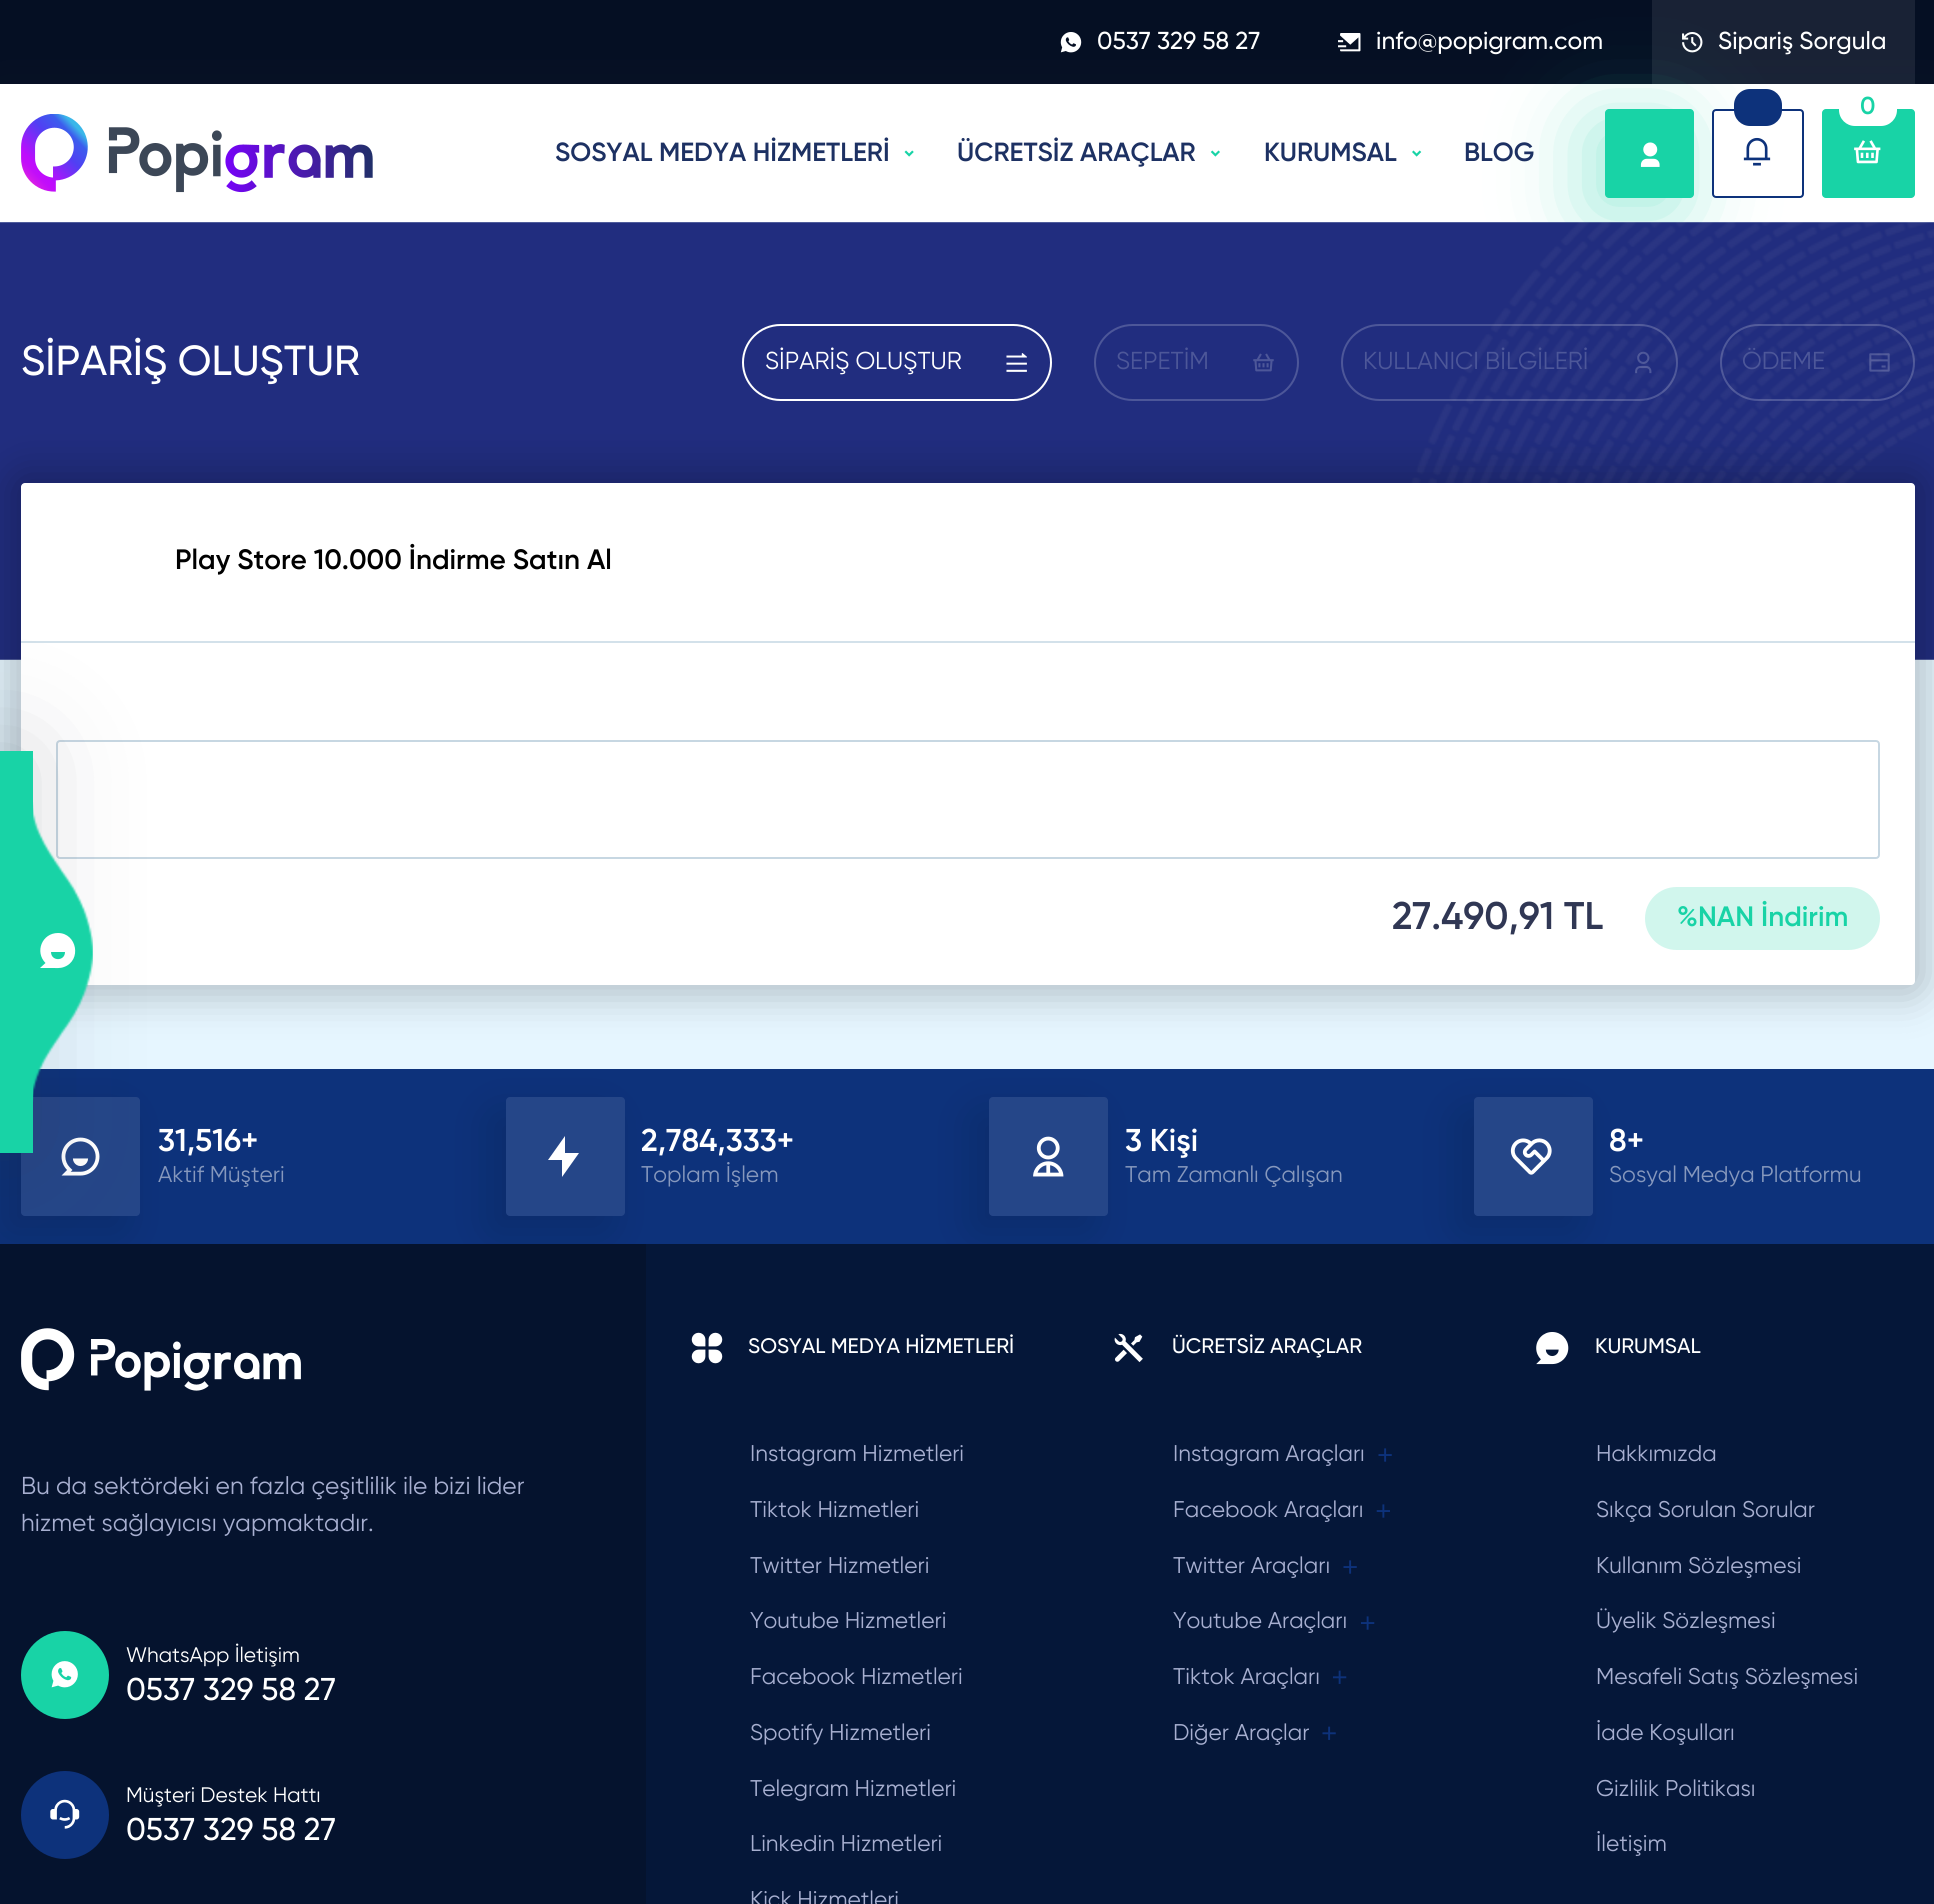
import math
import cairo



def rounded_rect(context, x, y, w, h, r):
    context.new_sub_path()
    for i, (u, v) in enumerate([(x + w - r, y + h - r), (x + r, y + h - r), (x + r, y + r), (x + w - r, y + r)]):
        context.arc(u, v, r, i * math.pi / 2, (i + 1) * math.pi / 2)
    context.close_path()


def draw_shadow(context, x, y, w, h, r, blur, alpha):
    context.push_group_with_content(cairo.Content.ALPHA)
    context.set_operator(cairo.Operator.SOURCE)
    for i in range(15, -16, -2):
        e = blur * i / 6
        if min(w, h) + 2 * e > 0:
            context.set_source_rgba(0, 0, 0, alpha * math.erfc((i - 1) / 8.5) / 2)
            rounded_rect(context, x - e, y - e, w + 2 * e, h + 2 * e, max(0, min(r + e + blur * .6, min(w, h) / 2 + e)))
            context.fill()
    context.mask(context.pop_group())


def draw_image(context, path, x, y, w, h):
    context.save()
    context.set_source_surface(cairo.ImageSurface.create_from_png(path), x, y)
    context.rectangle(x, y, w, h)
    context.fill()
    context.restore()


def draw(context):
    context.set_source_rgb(230 / 255, 246 / 255, 1)
    context.paint()
    context.set_source_rgb(5 / 255, 15 / 255, 35 / 255)
    context.rectangle(0, 0, 1934, 84)
    context.fill()
    draw_image(context, "images/1.png", 1060, 32, 22, 21)
    draw_image(context, "images/2.png", 1338, 33, 23, 19)
    context.set_source_rgb(25 / 255, 34 / 255, 53 / 255)
    context.rectangle(1652, 0, 263, 84)
    context.fill()
    draw_image(context, "images/3.png", 1682, 32, 21, 21)
    context.set_source_rgb(48 / 255, 55 / 255, 84 / 255)
    draw_shadow(context, 0, 84, 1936, 138, 0, 21, 0.08)
    context.set_source_rgb(1, 1, 1)
    context.rectangle(0, 84, 1934, 138)
    context.fill()
    draw_image(context, "images/4.png", 21, 114, 352, 79)
    context.set_source_rgb(25 / 255, 209 / 255, 167 / 255)
    draw_shadow(context, 1589, 124, 89, 90, 4, 43, 0.42)
    context.set_source_rgb(24 / 255, 211 / 255, 166 / 255)
    rounded_rect(context, 1605, 109, 89, 89, 4)
    context.fill()
    draw_image(context, "images/5.png", 1640, 142, 20, 25)
    context.set_source_rgb(1, 1, 1)
    rounded_rect(context, 1713, 110, 90, 87, 3)
    context.fill_preserve()
    context.set_source_rgb(13 / 255, 50 / 255, 123 / 255)
    context.stroke()
    rounded_rect(context, 1734, 89, 48, 37, 16)
    context.fill()
    draw_image(context, "images/6.png", 1743, 137, 28, 29)
    context.set_source_rgb(24 / 255, 211 / 255, 166 / 255)
    rounded_rect(context, 1822, 109, 93, 89, 4)
    context.fill()
    context.set_source_rgb(1, 1, 1)
    rounded_rect(context, 1839, 89, 58, 37, 16)
    context.fill()
    draw_image(context, "images/7.png", 1854, 140, 27, 24)
    draw_image(context, "images/8.png", 904, 150, 10, 7)
    draw_image(context, "images/9.png", 1210, 150, 10, 7)
    draw_image(context, "images/10.png", 1412, 150, 10, 7)
    draw_image(context, "images/11.png", 0, 222, 1934, 438)
    rounded_rect(context, 743, 325, 308, 75, 37.5)
    context.stroke()
    draw_image(context, "images/12.png", 1006, 353, 21, 19)
    rounded_rect(context, 1095, 325, 203, 75, 37.5)
    context.set_source_rgb(77 / 255, 87 / 255, 153 / 255)
    context.stroke()
    draw_image(context, "images/13.png", 1253, 353, 21, 19)
    rounded_rect(context, 1342, 325, 335, 75, 37.5)
    context.set_source_rgba(1, 1, 1, 0.2)
    context.stroke()
    draw_image(context, "images/14.png", 1635, 351, 17, 23)
    rounded_rect(context, 1721, 325, 193, 75, 37.5)
    context.stroke()
    draw_image(context, "images/15.png", 1869, 353, 21, 19)
    context.set_source_rgb(0, 0, 0)
    draw_shadow(context, 7, 469, 1922, 530, 18, 19, 0.2)
    context.set_source_rgb(1, 1, 1)
    rounded_rect(context, 21, 483, 1894, 502, 4)
    context.fill()
    context.set_source_rgb(211 / 255, 225 / 255, 234 / 255)
    context.rectangle(21, 641, 1894, 2)
    context.fill()
    rounded_rect(context, 57, 741, 1822, 117, 3)
    context.set_source_rgb(199 / 255, 215 / 255, 226 / 255)
    context.stroke()
    context.set_source_rgb(209 / 255, 246 / 255, 237 / 255)
    rounded_rect(context, 1645, 887, 235, 63, 31.5)
    context.fill()
    context.set_source_rgb(13 / 255, 50 / 255, 123 / 255)
    context.rectangle(0, 1069, 1934, 175)
    context.fill()
    context.set_source_rgb(0, 0, 0)
    draw_shadow(context, 5, 1113, 119, 119, 4, 23.5, 0.13)
    context.set_source_rgb(37 / 255, 70 / 255, 136 / 255)
    rounded_rect(context, 21, 1097, 119, 119, 4)
    context.fill()
    draw_image(context, "images/17.png", 61, 1137, 39, 39)
    context.set_source_rgb(0, 0, 0)
    draw_shadow(context, 490, 1113, 119, 119, 4, 23.5, 0.13)
    context.set_source_rgb(5 / 255, 19 / 255, 46 / 255)
    context.rectangle(0, 1244, 646, 660)
    context.fill()
    context.set_source_rgb(40 / 255, 48 / 255, 59 / 255)
    draw_shadow(context, -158, 751, 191, 402, 0, 52.5, 0.19)
    context.set_source_rgb(24 / 255, 211 / 255, 166 / 255)
    context.rectangle(0, 751, 33, 402)
    context.fill()
    draw_image(context, "images/16.png", 33, 802, 60, 300)
    context.set_source_rgb(1, 1, 1)
    context.new_path()
    context.move_to(58, 933)
    context.curve_to(77, 933, 82, 960.5, 64, 967)
    context.curve_to(60, 968.5, 56, 968, 52, 968)
    context.line_to(40, 968)
    context.line_to(45.5, 963)
    context.curve_to(34.5, 952, 42, 933, 58, 933)
    context.close_path()
    context.move_to(65, 952)
    context.line_to(51, 952)
    context.curve_to(51, 961.5, 65, 961.5, 65, 952)
    context.close_path()
    context.fill()
    context.set_source_rgb(37 / 255, 70 / 255, 136 / 255)
    rounded_rect(context, 506, 1097, 119, 119, 4)
    context.fill()
    context.set_source_rgb(1, 1, 1)
    context.new_path()
    context.move_to(565, 1153)
    context.line_to(579, 1153)
    context.line_to(562, 1177)
    context.line_to(562, 1160)
    context.line_to(548, 1160)
    context.line_to(565, 1136)
    context.close_path()
    context.fill()
    context.set_source_rgb(0, 0, 0)
    draw_shadow(context, 973, 1113, 119, 119, 4, 23.5, 0.13)
    context.set_source_rgb(37 / 255, 70 / 255, 136 / 255)
    rounded_rect(context, 989, 1097, 119, 119, 4)
    context.fill()
    draw_image(context, "images/18.png", 1033, 1136, 31, 41)
    context.set_source_rgb(0, 0, 0)
    draw_shadow(context, 1458, 1113, 119, 119, 4, 23.5, 0.13)
    context.set_source_rgb(37 / 255, 70 / 255, 136 / 255)
    rounded_rect(context, 1474, 1097, 119, 119, 4)
    context.fill()
    draw_image(context, "images/19.png", 1510, 1138, 42, 37)
    context.set_source_rgb(5 / 255, 23 / 255, 57 / 255)
    context.rectangle(646, 1244, 1288, 660)
    context.fill()
    draw_image(context, "images/20.png", 21, 1328, 280, 63)
    context.set_source_rgb(24 / 255, 211 / 255, 166 / 255)
    context.arc(65, 1675, 44, 0, 2 * math.pi)
    context.fill()
    draw_image(context, "images/21.png", 51, 1661, 27, 27)
    context.set_source_rgb(13 / 255, 50 / 255, 123 / 255)
    context.arc(65, 1815, 44, 0, 2 * math.pi)
    context.fill()
    draw_image(context, "images/22.png", 50, 1799, 30, 30)
    draw_image(context, "images/23.png", 691, 1332, 32, 32)
    draw_image(context, "images/24.png", 1114, 1333, 29, 30)
    draw_image(context, "images/25.png", 1378, 1448, 14, 14)
    draw_image(context, "images/26.png", 1376, 1504, 14, 14)
    draw_image(context, "images/25.png", 1343, 1560, 14, 14)
    draw_image(context, "images/27.png", 1361, 1616, 14, 14)
    draw_image(context, "images/28.png", 1333, 1670, 14, 14)
    draw_image(context, "images/29.png", 1322, 1726, 14, 14)
    draw_image(context, "images/30.png", 1536, 1332, 33, 33)
    context.select_font_face("Gilroy Medium")
    context.set_font_size(24.5)
    context.set_source_rgb(1, 1, 1)
    context.move_to(1097, 49)
    context.show_text("0537 329 58 27")
    context.move_to(1376, 49)
    context.show_text("info@popigram.com")
    context.move_to(1718, 49)
    context.show_text("Sipariş Sorgula")
    context.select_font_face("Gilroy SemiBold")
    context.set_source_rgb(24 / 255, 211 / 255, 166 / 255)
    context.move_to(1860, 114)
    context.show_text("0")
    context.set_font_size(26.25)
    context.set_source_rgb(29 / 255, 49 / 255, 99 / 255)
    context.move_to(555, 161)
    context.show_text("SOSYAL MEDYA HİZMETLERİ")
    context.move_to(957, 161)
    context.show_text("ÜCRETSİZ ARAÇLAR")
    context.move_to(1264, 161)
    context.show_text("KURUMSAL")
    context.move_to(1464, 161)
    context.show_text("BLOG")
    context.select_font_face("Gilroy Medium")
    context.set_font_size(42)
    context.set_source_rgb(1, 1, 1)
    context.move_to(21, 375)
    context.show_text("SİPARİŞ OLUŞTUR")
    context.select_font_face("Gilroy")
    context.set_font_size(24.5)
    context.move_to(765, 369)
    context.show_text("SİPARİŞ OLUŞTUR")
    context.set_source_rgb(77 / 255, 87 / 255, 153 / 255)
    context.move_to(1116, 369)
    context.show_text("SEPETİM")
    context.move_to(1363, 369)
    context.show_text("KULLANICI BİLGİLERİ")
    context.move_to(1742, 369)
    context.show_text("ÖDEME")
    context.select_font_face("Gilroy SemiBold")
    context.set_font_size(28)
    context.set_source_rgb(0, 0, 0)
    context.move_to(175, 569)
    context.show_text("Play Store 10.000 İndirme Satın Al")
    context.set_font_size(38.5)
    context.set_source_rgb(48 / 255, 55 / 255, 84 / 255)
    context.move_to(1392, 929)
    context.show_text("27.490,91 TL")
    context.set_font_size(28)
    context.set_source_rgb(24 / 255, 211 / 255, 166 / 255)
    context.move_to(1677, 926)
    context.show_text("%NAN İndirim")
    context.set_font_size(31.5)
    context.set_source_rgb(1, 1, 1)
    context.move_to(158, 1151)
    context.show_text("31,516+")
    context.select_font_face("Gilroy")
    context.set_font_size(22.75)
    context.set_source_rgb(134 / 255, 152 / 255, 189 / 255)
    context.move_to(158, 1182)
    context.show_text("Aktif Müşteri")
    context.select_font_face("Gilroy SemiBold")
    context.set_font_size(31.5)
    context.set_source_rgb(1, 1, 1)
    context.move_to(641, 1151)
    context.show_text("2,784,333+")
    context.select_font_face("Gilroy")
    context.set_font_size(22.75)
    context.set_source_rgb(134 / 255, 152 / 255, 189 / 255)
    context.move_to(641, 1182)
    context.show_text("Toplam İşlem")
    context.select_font_face("Gilroy SemiBold")
    context.set_font_size(31.5)
    context.set_source_rgb(1, 1, 1)
    context.move_to(1125, 1151)
    context.show_text("3 Kişi")
    context.select_font_face("Gilroy")
    context.set_font_size(22.75)
    context.set_source_rgb(134 / 255, 152 / 255, 189 / 255)
    context.move_to(1125, 1182)
    context.show_text("Tam Zamanlı Çalışan")
    context.select_font_face("Gilroy SemiBold")
    context.set_font_size(31.5)
    context.set_source_rgb(1, 1, 1)
    context.move_to(1609, 1151)
    context.show_text("8+")
    context.select_font_face("Gilroy")
    context.set_font_size(22.75)
    context.set_source_rgb(134 / 255, 152 / 255, 189 / 255)
    context.move_to(1609, 1182)
    context.show_text("Sosyal Medya Platformu")
    context.set_font_size(24.5)
    context.set_source_rgb(167 / 255, 175 / 255, 208 / 255)
    context.move_to(21, 1494)
    context.show_text("Bu da sektördeki en fazla çeşitlilik ile bizi lider")
    context.move_to(21, 1531)
    context.show_text("hizmet sağlayıcısı yapmaktadır.")
    context.set_font_size(21)
    context.set_source_rgb(1, 1, 1)
    context.move_to(126, 1662)
    context.show_text("WhatsApp İletişim")
    context.select_font_face("Gilroy Medium")
    context.set_font_size(31.5)
    context.move_to(126, 1700)
    context.show_text("0537 329 58 27")
    context.select_font_face("Gilroy")
    context.set_font_size(21)
    context.move_to(126, 1802)
    context.show_text("Müşteri Destek Hattı")
    context.select_font_face("Gilroy Medium")
    context.set_font_size(31.5)
    context.move_to(126, 1840)
    context.show_text("0537 329 58 27")
    context.set_font_size(21)
    context.move_to(748, 1353)
    context.show_text("SOSYAL MEDYA HİZMETLERİ")
    context.select_font_face("Gilroy")
    context.set_font_size(22.75)
    context.set_source_rgb(167 / 255, 175 / 255, 208 / 255)
    context.move_to(750, 1461)
    context.show_text("Instagram Hizmetleri")
    context.move_to(750, 1517)
    context.show_text("Tiktok Hizmetleri")
    context.move_to(750, 1573)
    context.show_text("Twitter Hizmetleri")
    context.move_to(750, 1628)
    context.show_text("Youtube Hizmetleri")
    context.move_to(750, 1684)
    context.show_text("Facebook Hizmetleri")
    context.move_to(750, 1740)
    context.show_text("Spotify Hizmetleri")
    context.move_to(750, 1796)
    context.show_text("Telegram Hizmetleri")
    context.move_to(750, 1851)
    context.show_text("Linkedin Hizmetleri")
    context.move_to(750, 1907)
    context.show_text("Kick Hizmetleri")
    context.select_font_face("Gilroy Medium")
    context.set_font_size(21)
    context.set_source_rgb(1, 1, 1)
    context.move_to(1172, 1353)
    context.show_text("ÜCRETSİZ ARAÇLAR")
    context.select_font_face("Gilroy")
    context.set_font_size(22.75)
    context.set_source_rgb(167 / 255, 175 / 255, 208 / 255)
    context.move_to(1173, 1461)
    context.show_text("Instagram Araçları")
    context.move_to(1173, 1517)
    context.show_text("Facebook Araçları")
    context.move_to(1173, 1573)
    context.show_text("Twitter Araçları")
    context.move_to(1173, 1628)
    context.show_text("Youtube Araçları")
    context.move_to(1173, 1684)
    context.show_text("Tiktok Araçları")
    context.move_to(1173, 1740)
    context.show_text("Diğer Araçlar")
    context.select_font_face("Gilroy Medium")
    context.set_font_size(21)
    context.set_source_rgb(1, 1, 1)
    context.move_to(1595, 1353)
    context.show_text("KURUMSAL")
    context.select_font_face("Gilroy")
    context.set_font_size(22.75)
    context.set_source_rgb(167 / 255, 175 / 255, 208 / 255)
    context.move_to(1596, 1461)
    context.show_text("Hakkımızda")
    context.move_to(1596, 1517)
    context.show_text("Sıkça Sorulan Sorular")
    context.move_to(1596, 1573)
    context.show_text("Kullanım Sözleşmesi")
    context.move_to(1596, 1628)
    context.show_text("Üyelik Sözleşmesi")
    context.move_to(1596, 1684)
    context.show_text("Mesafeli Satış Sözleşmesi")
    context.move_to(1596, 1740)
    context.show_text("İade Koşulları")
    context.move_to(1596, 1796)
    context.show_text("Gizlilik Politikası")
    context.move_to(1596, 1851)
    context.show_text("İletişim")


surface = cairo.ImageSurface(cairo.Format.RGB24, 1934, 1904)
context = cairo.Context(surface)
options = cairo.FontOptions()
options.set_hint_metrics(cairo.HintMetrics.OFF)
options.set_hint_style(cairo.HintStyle.NONE)
context.set_font_options(options)
context.set_miter_limit(4)
draw(context)
surface.write_to_png("out.png")
